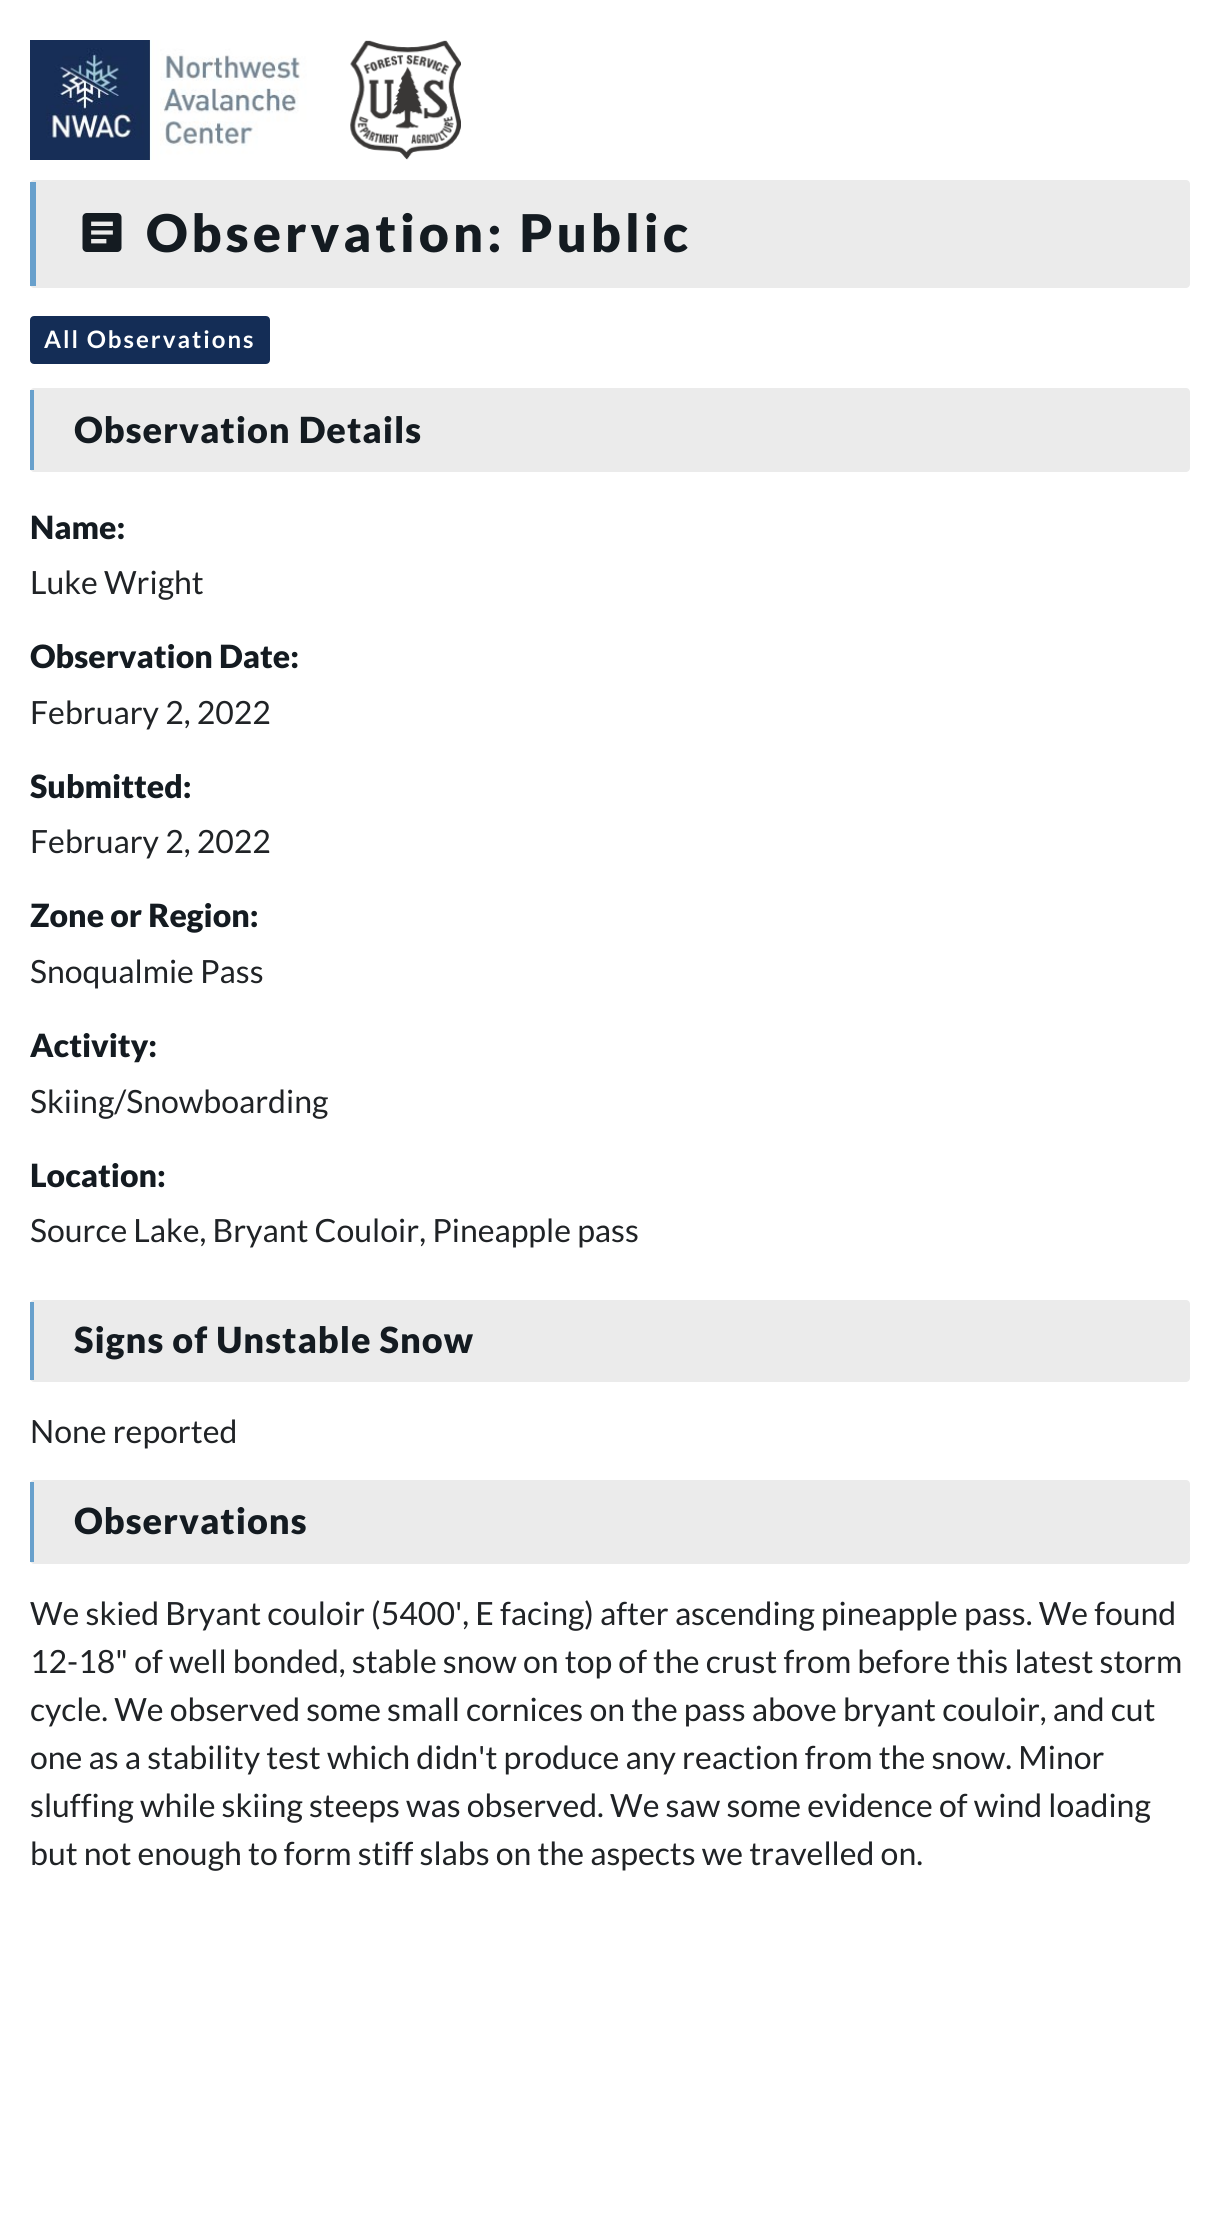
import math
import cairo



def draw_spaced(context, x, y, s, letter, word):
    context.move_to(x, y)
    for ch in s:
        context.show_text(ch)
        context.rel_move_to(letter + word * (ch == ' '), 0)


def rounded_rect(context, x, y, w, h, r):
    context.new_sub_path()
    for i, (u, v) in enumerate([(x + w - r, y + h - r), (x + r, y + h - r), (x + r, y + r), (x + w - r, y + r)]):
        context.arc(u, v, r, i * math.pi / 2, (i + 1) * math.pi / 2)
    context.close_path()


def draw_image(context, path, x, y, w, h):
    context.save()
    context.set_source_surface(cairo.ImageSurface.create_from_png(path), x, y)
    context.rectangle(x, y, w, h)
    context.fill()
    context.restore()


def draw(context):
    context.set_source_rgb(1, 1, 1)
    context.paint()
    draw_image(context, "images/1.png", 30, 40, 431, 120)
    context.set_source_rgb(235 / 255, 235 / 255, 235 / 255)
    rounded_rect(context, 30, 180, 1160, 108, 4)
    context.fill()
    context.set_source_rgb(104 / 255, 160 / 255, 204 / 255)
    context.rectangle(30, 182, 6, 104)
    context.fill()
    draw_image(context, "images/2.png", 82, 213, 40, 39)
    context.set_source_rgb(20 / 255, 45 / 255, 86 / 255)
    rounded_rect(context, 31, 317, 238, 46, 3)
    context.fill_preserve()
    context.stroke()
    context.set_source_rgb(235 / 255, 235 / 255, 235 / 255)
    rounded_rect(context, 30, 388, 1160, 84, 4)
    context.fill()
    context.set_source_rgb(104 / 255, 160 / 255, 204 / 255)
    context.rectangle(30, 390, 4, 80)
    context.fill()
    context.set_source_rgb(235 / 255, 235 / 255, 235 / 255)
    rounded_rect(context, 30, 1300, 1160, 82, 4)
    context.fill()
    context.set_source_rgb(104 / 255, 160 / 255, 204 / 255)
    context.rectangle(30, 1302, 4, 78)
    context.fill()
    context.set_source_rgb(235 / 255, 235 / 255, 235 / 255)
    rounded_rect(context, 30, 1480, 1160, 84, 4)
    context.fill()
    context.set_source_rgb(104 / 255, 160 / 255, 204 / 255)
    context.rectangle(30, 1482, 4, 80)
    context.fill()
    context.select_font_face("Lato Black")
    context.set_font_size(52)
    context.set_source_rgb(20 / 255, 27 / 255, 33 / 255)
    draw_spaced(context, 146, 252, "Observation: Public", 4, 0)
    context.select_font_face("Lato", cairo.FontSlant.NORMAL, cairo.FontWeight.BOLD)
    context.set_font_size(24)
    context.set_source_rgb(1, 1, 1)
    draw_spaced(context, 44, 348, "All Observations", 2, 0)
    context.select_font_face("Lato Black")
    context.set_font_size(36)
    context.set_source_rgb(20 / 255, 27 / 255, 33 / 255)
    draw_spaced(context, 74, 443, "Observation Details", 1, 0)
    context.set_font_size(32)
    context.move_to(30, 539)
    context.show_text("Name:")
    context.select_font_face("Lato")
    context.set_source_rgb(32 / 255, 35 / 255, 38 / 255)
    context.move_to(30, 594)
    context.show_text("Luke Wright")
    context.select_font_face("Lato Black")
    context.set_source_rgb(20 / 255, 27 / 255, 33 / 255)
    context.move_to(30, 668)
    context.show_text("Observation Date:")
    context.select_font_face("Lato")
    context.set_source_rgb(32 / 255, 35 / 255, 38 / 255)
    context.move_to(30, 724)
    context.show_text("February 2, 2022")
    context.select_font_face("Lato Black")
    context.set_source_rgb(20 / 255, 27 / 255, 33 / 255)
    context.move_to(30, 798)
    context.show_text("Submitted:")
    context.select_font_face("Lato")
    context.set_source_rgb(32 / 255, 35 / 255, 38 / 255)
    context.move_to(30, 853)
    context.show_text("February 2, 2022")
    context.select_font_face("Lato Black")
    context.set_source_rgb(20 / 255, 27 / 255, 33 / 255)
    context.move_to(30, 927)
    context.show_text("Zone or Region:")
    context.select_font_face("Lato")
    context.set_source_rgb(32 / 255, 35 / 255, 38 / 255)
    context.move_to(30, 983)
    context.show_text("Snoqualmie Pass")
    context.select_font_face("Lato Black")
    context.set_source_rgb(20 / 255, 27 / 255, 33 / 255)
    context.move_to(30, 1057)
    context.show_text("Activity:")
    context.select_font_face("Lato")
    context.set_source_rgb(32 / 255, 35 / 255, 38 / 255)
    context.move_to(30, 1113)
    context.show_text("Skiing/Snowboarding")
    context.select_font_face("Lato Black")
    context.set_source_rgb(20 / 255, 27 / 255, 33 / 255)
    context.move_to(30, 1187)
    context.show_text("Location:")
    context.select_font_face("Lato")
    context.set_source_rgb(32 / 255, 35 / 255, 38 / 255)
    context.move_to(30, 1242)
    context.show_text("Source Lake, Bryant Couloir, Pineapple pass")
    context.select_font_face("Lato Black")
    context.set_font_size(36)
    context.set_source_rgb(20 / 255, 27 / 255, 33 / 255)
    draw_spaced(context, 74, 1353, "Signs of Unstable Snow", 1, 0)
    context.select_font_face("Lato")
    context.set_font_size(32)
    context.set_source_rgb(32 / 255, 35 / 255, 38 / 255)
    context.move_to(30, 1443)
    context.show_text("None reported")
    context.select_font_face("Lato Black")
    context.set_font_size(36)
    context.set_source_rgb(20 / 255, 27 / 255, 33 / 255)
    draw_spaced(context, 74, 1534, "Observations", 1, 0)
    context.select_font_face("Lato")
    context.set_font_size(32)
    context.set_source_rgb(32 / 255, 35 / 255, 38 / 255)
    context.move_to(30, 1625)
    context.show_text("We skied Bryant couloir (5400', E facing) after ascending pineapple pass. We found")
    context.move_to(30, 1673)
    context.show_text("12-18\" of well bonded, stable snow on top of the crust from before this latest storm")
    context.move_to(30, 1721)
    context.show_text("cycle. We observed some small cornices on the pass above bryant couloir, and cut")
    context.move_to(30, 1769)
    context.show_text("one as a stability test which didn't produce any reaction from the snow. Minor")
    context.move_to(30, 1817)
    context.show_text("sluffing while skiing steeps was observed. We saw some evidence of wind loading")
    context.move_to(30, 1865)
    context.show_text("but not enough to form stiff slabs on the aspects we travelled on.")


surface = cairo.ImageSurface(cairo.Format.RGB24, 1220, 2219)
context = cairo.Context(surface)
options = cairo.FontOptions()
options.set_hint_metrics(cairo.HintMetrics.OFF)
options.set_hint_style(cairo.HintStyle.NONE)
context.set_font_options(options)
context.set_miter_limit(4)
draw(context)
surface.write_to_png("out.png")
